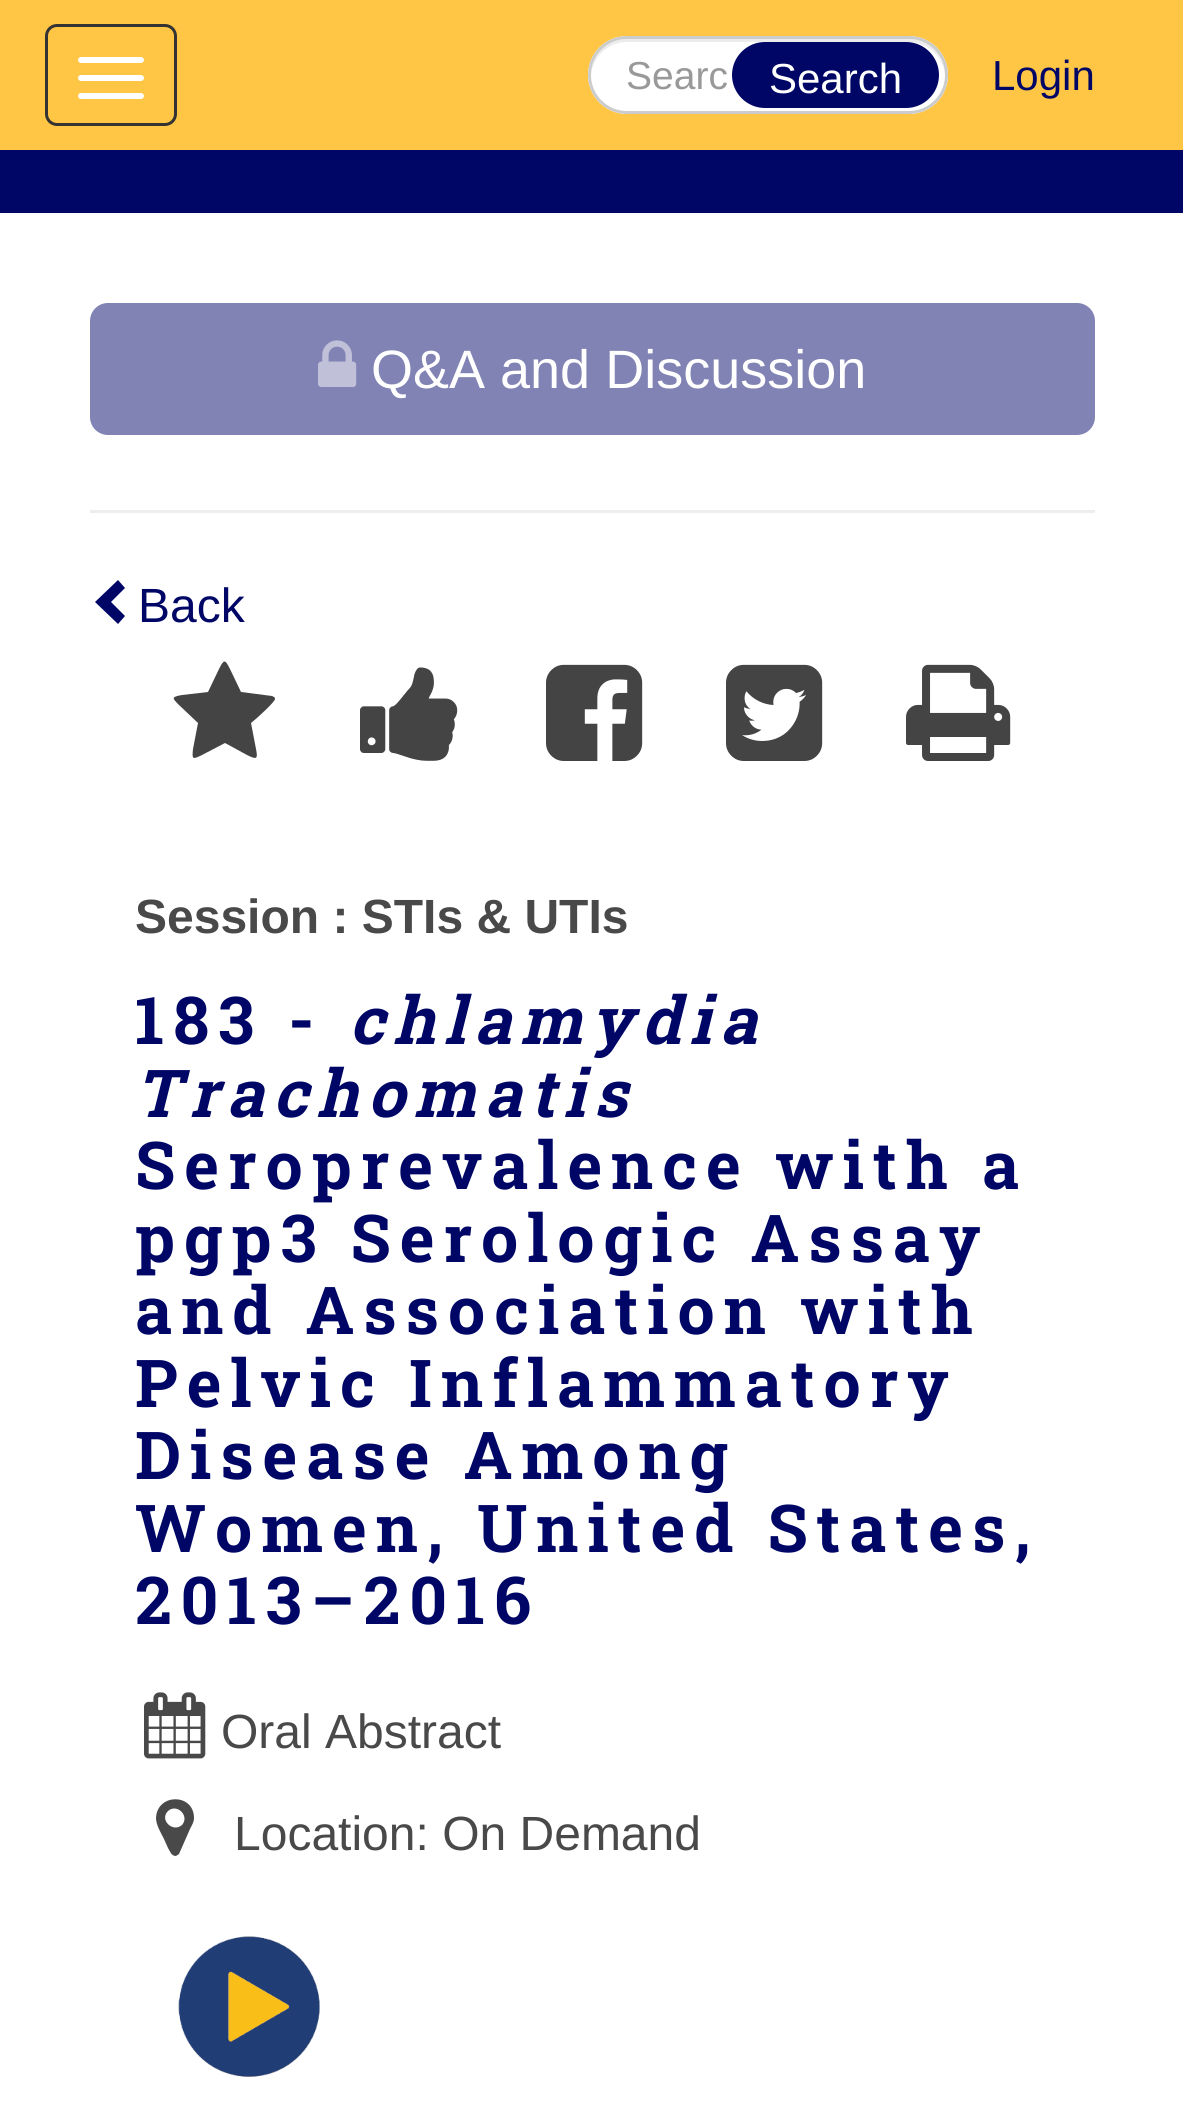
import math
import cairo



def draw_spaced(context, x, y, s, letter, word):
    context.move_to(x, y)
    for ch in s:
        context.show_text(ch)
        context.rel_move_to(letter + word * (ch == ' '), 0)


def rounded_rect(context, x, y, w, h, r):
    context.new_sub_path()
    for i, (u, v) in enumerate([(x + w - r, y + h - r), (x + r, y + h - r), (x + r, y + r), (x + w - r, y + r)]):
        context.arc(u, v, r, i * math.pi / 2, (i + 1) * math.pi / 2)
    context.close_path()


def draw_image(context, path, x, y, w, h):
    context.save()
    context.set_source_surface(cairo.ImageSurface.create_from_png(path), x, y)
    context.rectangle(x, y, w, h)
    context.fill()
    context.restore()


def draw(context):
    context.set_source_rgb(1, 1, 1)
    context.paint()
    context.set_source_rgb(1, 197 / 255, 69 / 255)
    context.rectangle(0, 0, 1183, 150)
    context.fill()
    rounded_rect(context, 46.5, 25.5, 129, 99, 10.5)
    context.set_source_rgb(51 / 255, 51 / 255, 51 / 255)
    context.set_line_width(3)
    context.stroke()
    context.set_source_rgb(1, 1, 1)
    rounded_rect(context, 78, 57, 66, 6, 3)
    context.fill()
    rounded_rect(context, 78, 75, 66, 6, 3)
    context.fill()
    rounded_rect(context, 78, 93, 66, 6, 3)
    context.fill()
    rounded_rect(context, 588, 36, 360, 78, 39)
    context.fill()
    context.set_source_rgb(236 / 255, 236 / 255, 236 / 255)
    context.new_path()
    context.move_to(627, 42)
    context.line_to(909, 42)
    context.curve_to(928, 42, 944, 57, 945, 76)
    context.line_to(945, 75)
    context.curve_to(945, 55, 929, 39, 909, 39)
    context.line_to(627, 39)
    context.curve_to(607, 39, 591, 55, 591, 75)
    context.line_to(591, 76)
    context.curve_to(592, 57, 608, 42, 627, 42)
    context.close_path()
    context.fill()
    rounded_rect(context, 589.5, 37.5, 357, 75, 37.5)
    context.set_source_rgb(204 / 255, 204 / 255, 204 / 255)
    context.stroke()
    context.set_source_rgb(0, 6 / 255, 102 / 255)
    rounded_rect(context, 732, 42, 207, 66, 33)
    context.fill()
    context.rectangle(0, 150, 1183, 63)
    context.fill()
    context.set_source_rgb(128 / 255, 131 / 255, 179 / 255)
    rounded_rect(context, 90, 303, 1005, 132, 18)
    context.fill()
    draw_image(context, "images/1.png", 318, 340, 39, 47)
    context.set_source_rgb(238 / 255, 238 / 255, 238 / 255)
    context.rectangle(90, 510, 1005, 3)
    context.fill()
    context.set_source_rgb(0, 6 / 255, 102 / 255)
    context.new_path()
    context.move_to(125, 588)
    context.line_to(111, 602)
    context.line_to(125, 616)
    context.line_to(118, 624)
    context.line_to(95, 602)
    context.line_to(118, 580)
    context.close_path()
    context.fill()
    context.set_source_rgb(68 / 255, 68 / 255, 68 / 255)
    context.new_path()
    context.move_to(275, 699)
    context.curve_to(275, 702, 255, 720, 251, 723)
    context.line_to(256, 749)
    context.curve_to(258, 759, 257, 760, 247, 755)
    context.line_to(225, 743)
    context.line_to(202, 755)
    context.curve_to(192, 760, 192, 759, 193, 749)
    context.line_to(198, 723)
    context.line_to(179, 705)
    context.curve_to(172, 698, 171, 697, 182, 695)
    context.line_to(208, 692)
    context.line_to(219, 669)
    context.curve_to(224, 659, 225, 659, 230, 669)
    context.line_to(241, 692)
    context.line_to(272, 696)
    context.curve_to(274, 697, 275, 697, 275, 699)
    context.close_path()
    context.fill()
    draw_image(context, "images/2.png", 360, 667, 98, 94)
    draw_image(context, "images/3.png", 546, 664, 97, 97)
    draw_image(context, "images/4.png", 726, 664, 97, 97)
    draw_image(context, "images/5.png", 906, 664, 105, 97)
    draw_image(context, "images/6.png", 144, 1692, 62, 67)
    context.set_source_rgb(73 / 255, 73 / 255, 73 / 255)
    context.new_path()
    context.move_to(182, 1825)
    context.curve_to(190, 1816, 177, 1803, 168, 1811)
    context.curve_to(159, 1820, 173, 1833, 182, 1825)
    context.close_path()
    context.move_to(194, 1818)
    context.curve_to(194, 1822, 192, 1825, 190, 1829)
    context.line_to(179, 1854)
    context.line_to(176, 1856)
    context.curve_to(171, 1856, 170, 1851, 168, 1848)
    context.line_to(164, 1839)
    context.curve_to(161, 1833, 156, 1825, 156, 1818)
    context.curve_to(157, 1793, 194, 1793, 194, 1818)
    context.close_path()
    context.fill()
    draw_image(context, "images/7.png", 178, 1936, 142, 141)
    context.select_font_face("Liberation Sans")
    context.set_font_size(39)
    context.set_source_rgb(153 / 255, 153 / 255, 153 / 255)
    context.move_to(626, 89)
    context.show_text("Searc")
    context.set_font_size(42)
    context.set_source_rgb(1, 1, 1)
    context.move_to(769, 93)
    context.show_text("Search")
    context.set_source_rgb(0, 6 / 255, 102 / 255)
    context.move_to(992, 90)
    context.show_text("Login")
    context.set_font_size(54)
    context.set_source_rgb(1, 1, 1)
    context.move_to(371, 388)
    context.show_text("Q&A and Discussion")
    context.set_font_size(48)
    context.set_source_rgb(0, 6 / 255, 102 / 255)
    context.move_to(138, 622)
    context.show_text("Back")
    context.select_font_face("Liberation Sans", cairo.FontSlant.NORMAL, cairo.FontWeight.BOLD)
    context.set_source_rgb(73 / 255, 73 / 255, 73 / 255)
    context.move_to(135, 933)
    context.show_text("Session : STIs & UTIs")
    context.select_font_face("Roboto Slab", cairo.FontSlant.NORMAL, cairo.FontWeight.BOLD)
    context.set_font_size(66)
    context.set_source_rgb(0, 6 / 255, 102 / 255)
    draw_spaced(context, 135, 1044, "183 -", 9, 0)
    context.select_font_face("Roboto Slab", cairo.FontSlant.ITALIC, cairo.FontWeight.BOLD)
    draw_spaced(context, 349, 1044, "chlamydia", 9, 0)
    draw_spaced(context, 135, 1117, "Trachomatis", 9, 0)
    context.select_font_face("Roboto Slab", cairo.FontSlant.NORMAL, cairo.FontWeight.BOLD)
    draw_spaced(context, 135, 1189, "Seroprevalence with a", 9, 0)
    draw_spaced(context, 135, 1262, "pgp3 Serologic Assay", 9, 0)
    draw_spaced(context, 135, 1334, "and Association with", 9, 0)
    draw_spaced(context, 135, 1407, "Pelvic Inflammatory", 9, 0)
    draw_spaced(context, 135, 1479, "Disease Among", 9, 0)
    draw_spaced(context, 135, 1552, "Women, United States,", 9, 0)
    draw_spaced(context, 135, 1624, "2013–2016", 9, 0)
    context.select_font_face("Liberation Sans")
    context.set_font_size(48)
    context.set_source_rgb(73 / 255, 73 / 255, 73 / 255)
    context.move_to(221, 1748)
    context.show_text("Oral Abstract")
    context.move_to(234, 1850)
    context.show_text("Location: On Demand")


surface = cairo.ImageSurface(cairo.Format.RGB24, 1183, 2117)
context = cairo.Context(surface)
options = cairo.FontOptions()
options.set_hint_metrics(cairo.HintMetrics.OFF)
options.set_hint_style(cairo.HintStyle.NONE)
context.set_font_options(options)
context.set_miter_limit(4)
draw(context)
surface.write_to_png("out.png")
